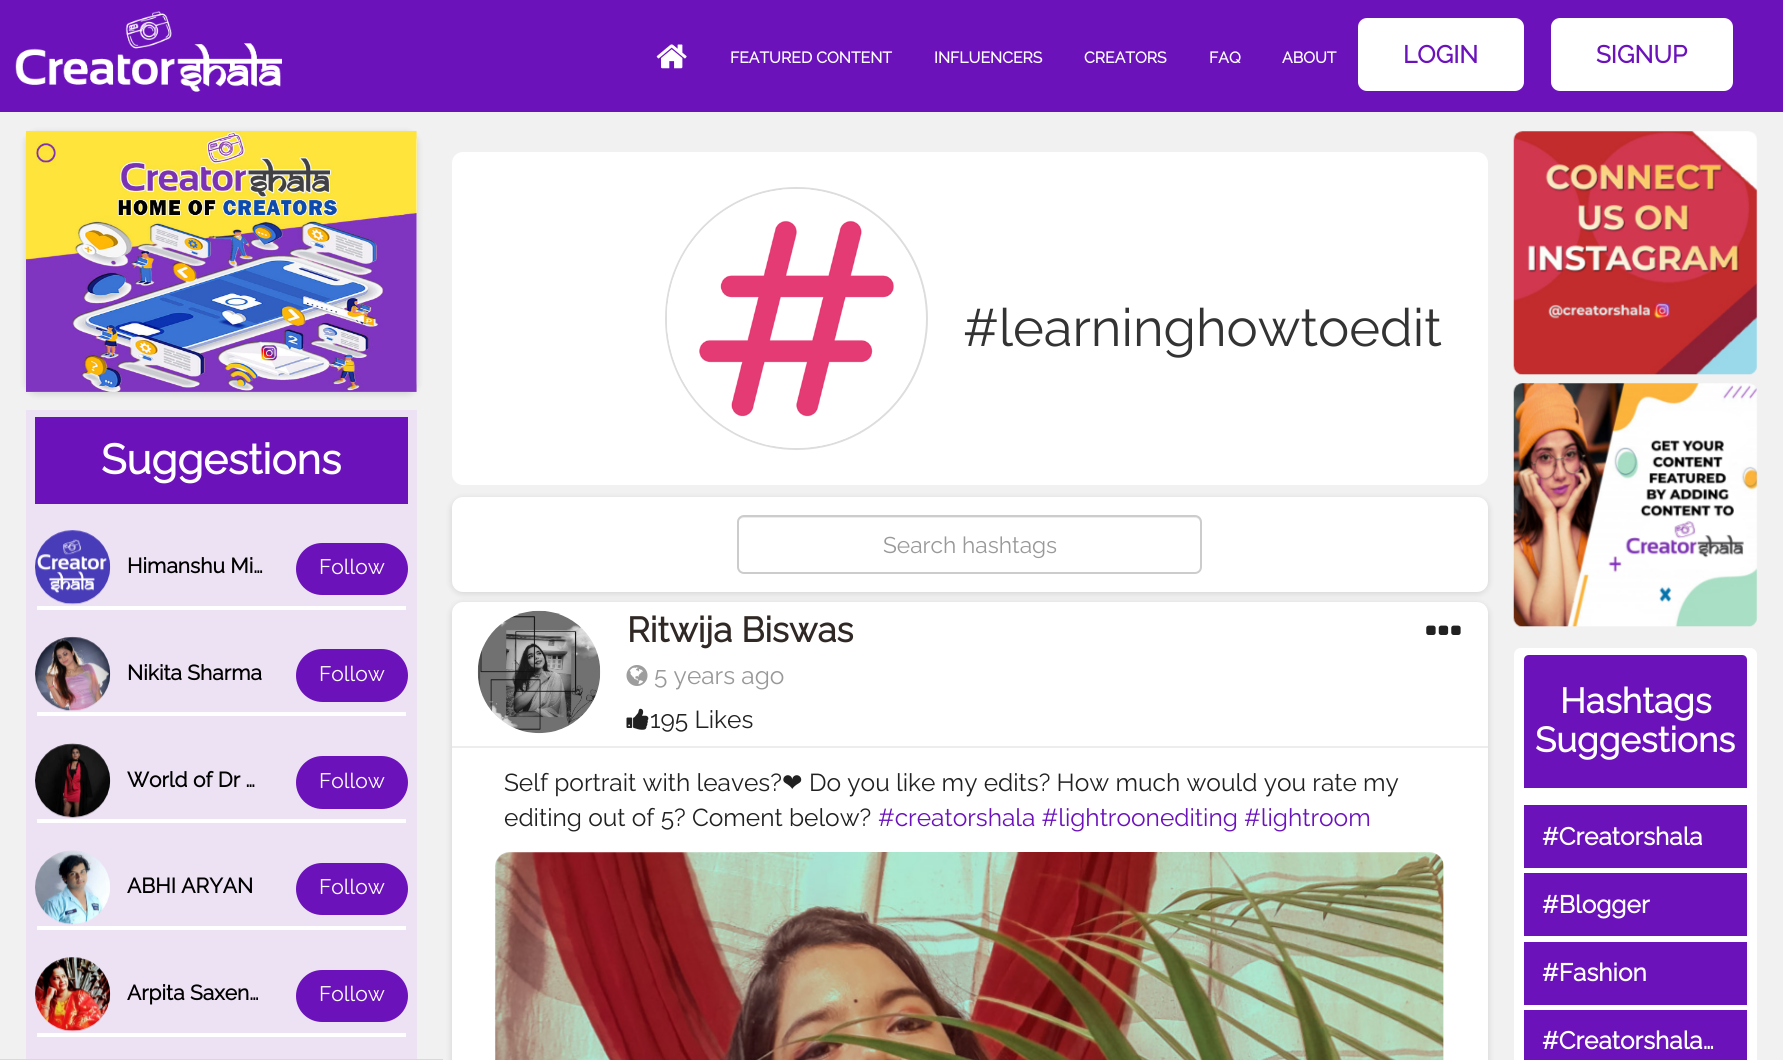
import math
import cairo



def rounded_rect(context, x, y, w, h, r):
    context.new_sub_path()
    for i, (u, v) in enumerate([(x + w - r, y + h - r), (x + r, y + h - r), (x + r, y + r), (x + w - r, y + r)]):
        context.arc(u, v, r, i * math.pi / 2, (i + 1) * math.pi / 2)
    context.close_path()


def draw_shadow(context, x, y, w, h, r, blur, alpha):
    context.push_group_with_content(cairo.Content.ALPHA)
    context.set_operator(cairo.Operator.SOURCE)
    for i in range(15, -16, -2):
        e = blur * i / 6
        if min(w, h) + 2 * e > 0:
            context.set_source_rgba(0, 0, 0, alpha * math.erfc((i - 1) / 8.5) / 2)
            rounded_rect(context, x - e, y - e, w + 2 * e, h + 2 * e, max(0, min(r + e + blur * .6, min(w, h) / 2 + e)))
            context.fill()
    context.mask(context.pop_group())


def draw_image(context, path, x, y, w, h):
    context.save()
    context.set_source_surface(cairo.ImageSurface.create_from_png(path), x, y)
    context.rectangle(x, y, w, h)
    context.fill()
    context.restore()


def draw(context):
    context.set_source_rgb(241 / 255, 241 / 255, 241 / 255)
    context.paint()
    context.set_source_rgb(108 / 255, 18 / 255, 187 / 255)
    context.rectangle(0, 0, 1783, 112)
    context.fill()
    draw_image(context, "images/1.png", 15, 11, 267, 81)
    draw_image(context, "images/2.png", 656, 44, 31, 25)
    context.set_source_rgb(1, 1, 1)
    rounded_rect(context, 1358, 18, 166, 73, 9)
    context.fill()
    rounded_rect(context, 1551, 18, 182, 73, 9)
    context.fill()
    context.set_source_rgb(0, 0, 0)
    draw_shadow(context, 452, 604, 1036, 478, 11, 3.5, 0.14)
    context.set_source_rgb(217 / 255, 217 / 255, 217 / 255)
    context.rectangle(0, 1059, 443, 1)
    context.fill()
    context.set_source_rgb(0, 0, 0)
    draw_shadow(context, 26, 133, 391, 261, 11, 3.5, 0.14)
    context.set_source_rgb(1, 1, 1)
    rounded_rect(context, 26, 131, 391, 261, 11)
    context.fill()
    draw_image(context, "images/3.png", 26, 131, 391, 261)
    context.set_source_rgb(237 / 255, 225 / 255, 244 / 255)
    context.rectangle(26, 410, 391, 649)
    context.fill()
    context.set_source_rgb(108 / 255, 18 / 255, 187 / 255)
    context.rectangle(35, 417, 373, 87)
    context.fill()
    draw_image(context, "images/4.png", 35, 530, 76, 75)
    rounded_rect(context, 296, 543, 112, 52, 26)
    context.fill()
    context.set_source_rgb(1, 1, 1)
    context.rectangle(37, 606, 369, 4)
    context.fill()
    draw_image(context, "images/5.png", 35, 636, 76, 75)
    context.set_source_rgb(108 / 255, 18 / 255, 187 / 255)
    rounded_rect(context, 296, 649, 112, 53, 26.5)
    context.fill()
    context.set_source_rgb(1, 1, 1)
    context.rectangle(37, 712, 369, 4)
    context.fill()
    draw_image(context, "images/6.png", 35, 743, 76, 75)
    context.set_source_rgb(108 / 255, 18 / 255, 187 / 255)
    rounded_rect(context, 296, 756, 112, 53, 26.5)
    context.fill()
    context.set_source_rgb(1, 1, 1)
    context.rectangle(37, 819, 369, 4)
    context.fill()
    draw_image(context, "images/7.png", 35, 850, 75, 75)
    context.set_source_rgb(108 / 255, 18 / 255, 187 / 255)
    rounded_rect(context, 296, 863, 112, 52, 26)
    context.fill()
    context.set_source_rgb(1, 1, 1)
    context.rectangle(37, 926, 369, 4)
    context.fill()
    draw_image(context, "images/8.png", 35, 957, 76, 75)
    context.set_source_rgb(108 / 255, 18 / 255, 187 / 255)
    rounded_rect(context, 296, 970, 112, 52, 26)
    context.fill()
    context.set_source_rgb(1, 1, 1)
    context.rectangle(37, 1033, 369, 4)
    context.fill()
    rounded_rect(context, 452, 152, 1036, 333, 11)
    context.fill()
    context.arc(796.5, 318.5, 130.5, 0, 2 * math.pi)
    context.set_source_rgb(221 / 255, 221 / 255, 221 / 255)
    context.stroke()
    draw_image(context, "images/9.png", 667, 189, 257, 259)
    context.set_source_rgb(0, 0, 0)
    draw_shadow(context, 452, 499, 1036, 94, 11, 3.5, 0.14)
    context.set_source_rgb(1, 1, 1)
    rounded_rect(context, 452, 497, 1036, 95, 11)
    context.fill()
    context.set_source_rgb(236 / 255, 236 / 255, 236 / 255)
    context.new_path()
    context.move_to(744, 518)
    context.line_to(1195, 518)
    context.curve_to(1198, 518, 1200, 520, 1200, 523)
    context.line_to(1200, 570)
    context.curve_to(1201, 569, 1201, 568, 1201, 567)
    context.line_to(1201, 521)
    context.curve_to(1201, 518, 1199, 516, 1196, 516)
    context.line_to(744, 516)
    context.curve_to(742, 516, 739, 518, 739, 520)
    context.curve_to(740, 519, 742, 518, 744, 518)
    context.close_path()
    context.fill()
    rounded_rect(context, 738, 516, 463, 57, 6)
    context.set_source_rgb(204 / 255, 204 / 255, 204 / 255)
    context.stroke()
    context.set_source_rgb(1, 1, 1)
    rounded_rect(context, 452, 602, 1036, 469, 11)
    context.fill()
    context.set_source_rgb(237 / 255, 237 / 255, 237 / 255)
    context.rectangle(452, 746, 1036, 2)
    context.fill()
    draw_image(context, "images/10.png", 477, 610, 124, 124)
    draw_image(context, "images/11.png", 626, 665, 22, 21)
    draw_image(context, "images/12.png", 626, 708, 23, 22)
    draw_image(context, "images/13.png", 1426, 625, 35, 10)
    context.save()
    rounded_rect(context, 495, 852, 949, 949, 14)
    context.clip()
    context.set_source_rgb(157 / 255, 157 / 255, 157 / 255)
    draw_shadow(context, 497, 854, 945, 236, 12, 6, 1)
    context.restore()
    context.set_source_rgb(251 / 255, 251 / 255, 251 / 255)
    rounded_rect(context, 495, 852, 949, 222, 14)
    context.fill()
    draw_image(context, "images/14.png", 495, 852, 949, 208)
    draw_image(context, "images/15.png", 1513, 131, 245, 244)
    draw_image(context, "images/16.png", 1513, 383, 245, 244)
    context.set_source_rgb(1, 1, 1)
    context.new_path()
    context.move_to(1521, 648)
    context.line_to(1750, 648)
    context.curve_to(1754, 648, 1757, 651, 1757, 655)
    context.line_to(1757, 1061)
    context.line_to(1514, 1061)
    context.line_to(1514, 655)
    context.curve_to(1514, 651, 1517, 648, 1521, 648)
    context.close_path()
    context.fill()
    context.set_source_rgb(108 / 255, 18 / 255, 187 / 255)
    context.new_path()
    context.move_to(1529, 655)
    context.line_to(1742, 655)
    context.curve_to(1745, 655, 1747, 657, 1747, 660)
    context.line_to(1747, 788)
    context.line_to(1524, 788)
    context.line_to(1524, 660)
    context.curve_to(1524, 657, 1526, 655, 1529, 655)
    context.close_path()
    context.fill()
    context.rectangle(1524, 805, 223, 63)
    context.fill()
    context.rectangle(1524, 873, 223, 63)
    context.fill()
    context.rectangle(1524, 942, 223, 63)
    context.fill()
    context.rectangle(1524, 1010, 223, 50)
    context.fill()
    context.select_font_face("Raleway", cairo.FontSlant.NORMAL, cairo.FontWeight.BOLD)
    context.set_font_size(15.75)
    context.set_source_rgb(1, 1, 1)
    context.move_to(730, 63)
    context.show_text("FEATURED CONTENT")
    context.move_to(934, 63)
    context.show_text("INFLUENCERS")
    context.move_to(1084, 63)
    context.show_text("CREATORS")
    context.move_to(1209, 63)
    context.show_text("FAQ")
    context.move_to(1282, 63)
    context.show_text("ABOUT")
    context.set_font_size(24.5)
    context.set_source_rgb(108 / 255, 18 / 255, 187 / 255)
    context.move_to(1403, 63)
    context.show_text("LOGIN")
    context.move_to(1596, 63)
    context.show_text("SIGNUP")
    context.set_font_size(42)
    context.set_source_rgb(1, 1, 1)
    context.move_to(101, 474)
    context.show_text("Suggestions")
    context.set_font_size(21)
    context.set_source_rgb(0, 0, 0)
    context.move_to(127, 573)
    context.show_text("Himanshu Mi…")
    context.select_font_face("Raleway Thin")
    context.set_source_rgb(1, 1, 1)
    context.move_to(319, 574)
    context.show_text("Follow")
    context.select_font_face("Raleway", cairo.FontSlant.NORMAL, cairo.FontWeight.BOLD)
    context.set_source_rgb(0, 0, 0)
    context.move_to(127, 680)
    context.show_text("Nikita Sharma")
    context.select_font_face("Raleway Thin")
    context.set_source_rgb(1, 1, 1)
    context.move_to(319, 681)
    context.show_text("Follow")
    context.select_font_face("Raleway", cairo.FontSlant.NORMAL, cairo.FontWeight.BOLD)
    context.set_source_rgb(0, 0, 0)
    context.move_to(127, 787)
    context.show_text("World of Dr …")
    context.select_font_face("Raleway Thin")
    context.set_source_rgb(1, 1, 1)
    context.move_to(319, 788)
    context.show_text("Follow")
    context.select_font_face("Raleway", cairo.FontSlant.NORMAL, cairo.FontWeight.BOLD)
    context.set_source_rgb(0, 0, 0)
    context.move_to(127, 893)
    context.show_text("ABHI ARYAN")
    context.select_font_face("Raleway Thin")
    context.set_source_rgb(1, 1, 1)
    context.move_to(319, 894)
    context.show_text("Follow")
    context.select_font_face("Raleway", cairo.FontSlant.NORMAL, cairo.FontWeight.BOLD)
    context.set_source_rgb(0, 0, 0)
    context.move_to(127, 1000)
    context.show_text("Arpita Saxen…")
    context.select_font_face("Raleway Thin")
    context.set_source_rgb(1, 1, 1)
    context.move_to(319, 1001)
    context.show_text("Follow")
    context.set_font_size(52.5)
    context.set_source_rgb(51 / 255, 51 / 255, 51 / 255)
    context.move_to(963, 346)
    context.show_text("#learninghowtoedit")
    context.set_font_size(22.75)
    context.set_source_rgb(153 / 255, 153 / 255, 153 / 255)
    context.move_to(883, 553)
    context.show_text("Search hashtags")
    context.select_font_face("Raleway", cairo.FontSlant.NORMAL, cairo.FontWeight.BOLD)
    context.set_font_size(35)
    context.set_source_rgb(48 / 255, 40 / 255, 37 / 255)
    context.move_to(627, 642)
    context.show_text("Ritwija Biswas")
    context.select_font_face("Raleway Thin")
    context.set_font_size(24.5)
    context.set_source_rgb(153 / 255, 153 / 255, 153 / 255)
    context.move_to(654, 684)
    context.show_text("5 years ago")
    context.set_source_rgb(33 / 255, 33 / 255, 33 / 255)
    context.move_to(650, 728)
    context.show_text("195 Likes")
    context.move_to(504, 791)
    context.show_text("Self portrait with leaves?")
    context.select_font_face("DejaVu Sans")
    context.move_to(782, 791)
    context.show_text("❤")
    context.select_font_face("Raleway Thin")
    context.move_to(809, 791)
    context.show_text("Do you like my edits? How much would you rate my")
    context.move_to(504, 826)
    context.show_text("editing out of 5? Coment below?")
    context.set_source_rgb(108 / 255, 18 / 255, 187 / 255)
    context.move_to(878, 826)
    context.show_text("#creatorshala #lightroonediting #lightroom")
    context.select_font_face("Raleway", cairo.FontSlant.NORMAL, cairo.FontWeight.BOLD)
    context.set_font_size(35)
    context.set_source_rgb(1, 1, 1)
    context.move_to(1560, 713)
    context.show_text("Hashtags")
    context.move_to(1535, 752)
    context.show_text("Suggestions")
    context.set_font_size(24.5)
    context.move_to(1542, 845)
    context.show_text("#Creatorshala")
    context.move_to(1542, 913)
    context.show_text("#Blogger")
    context.move_to(1542, 981)
    context.show_text("#Fashion")
    context.move_to(1542, 1049)
    context.show_text("#Creatorshala…")


surface = cairo.ImageSurface(cairo.Format.RGB24, 1783, 1060)
context = cairo.Context(surface)
options = cairo.FontOptions()
options.set_hint_metrics(cairo.HintMetrics.OFF)
options.set_hint_style(cairo.HintStyle.NONE)
context.set_font_options(options)
context.set_miter_limit(4)
draw(context)
surface.write_to_png("out.png")
